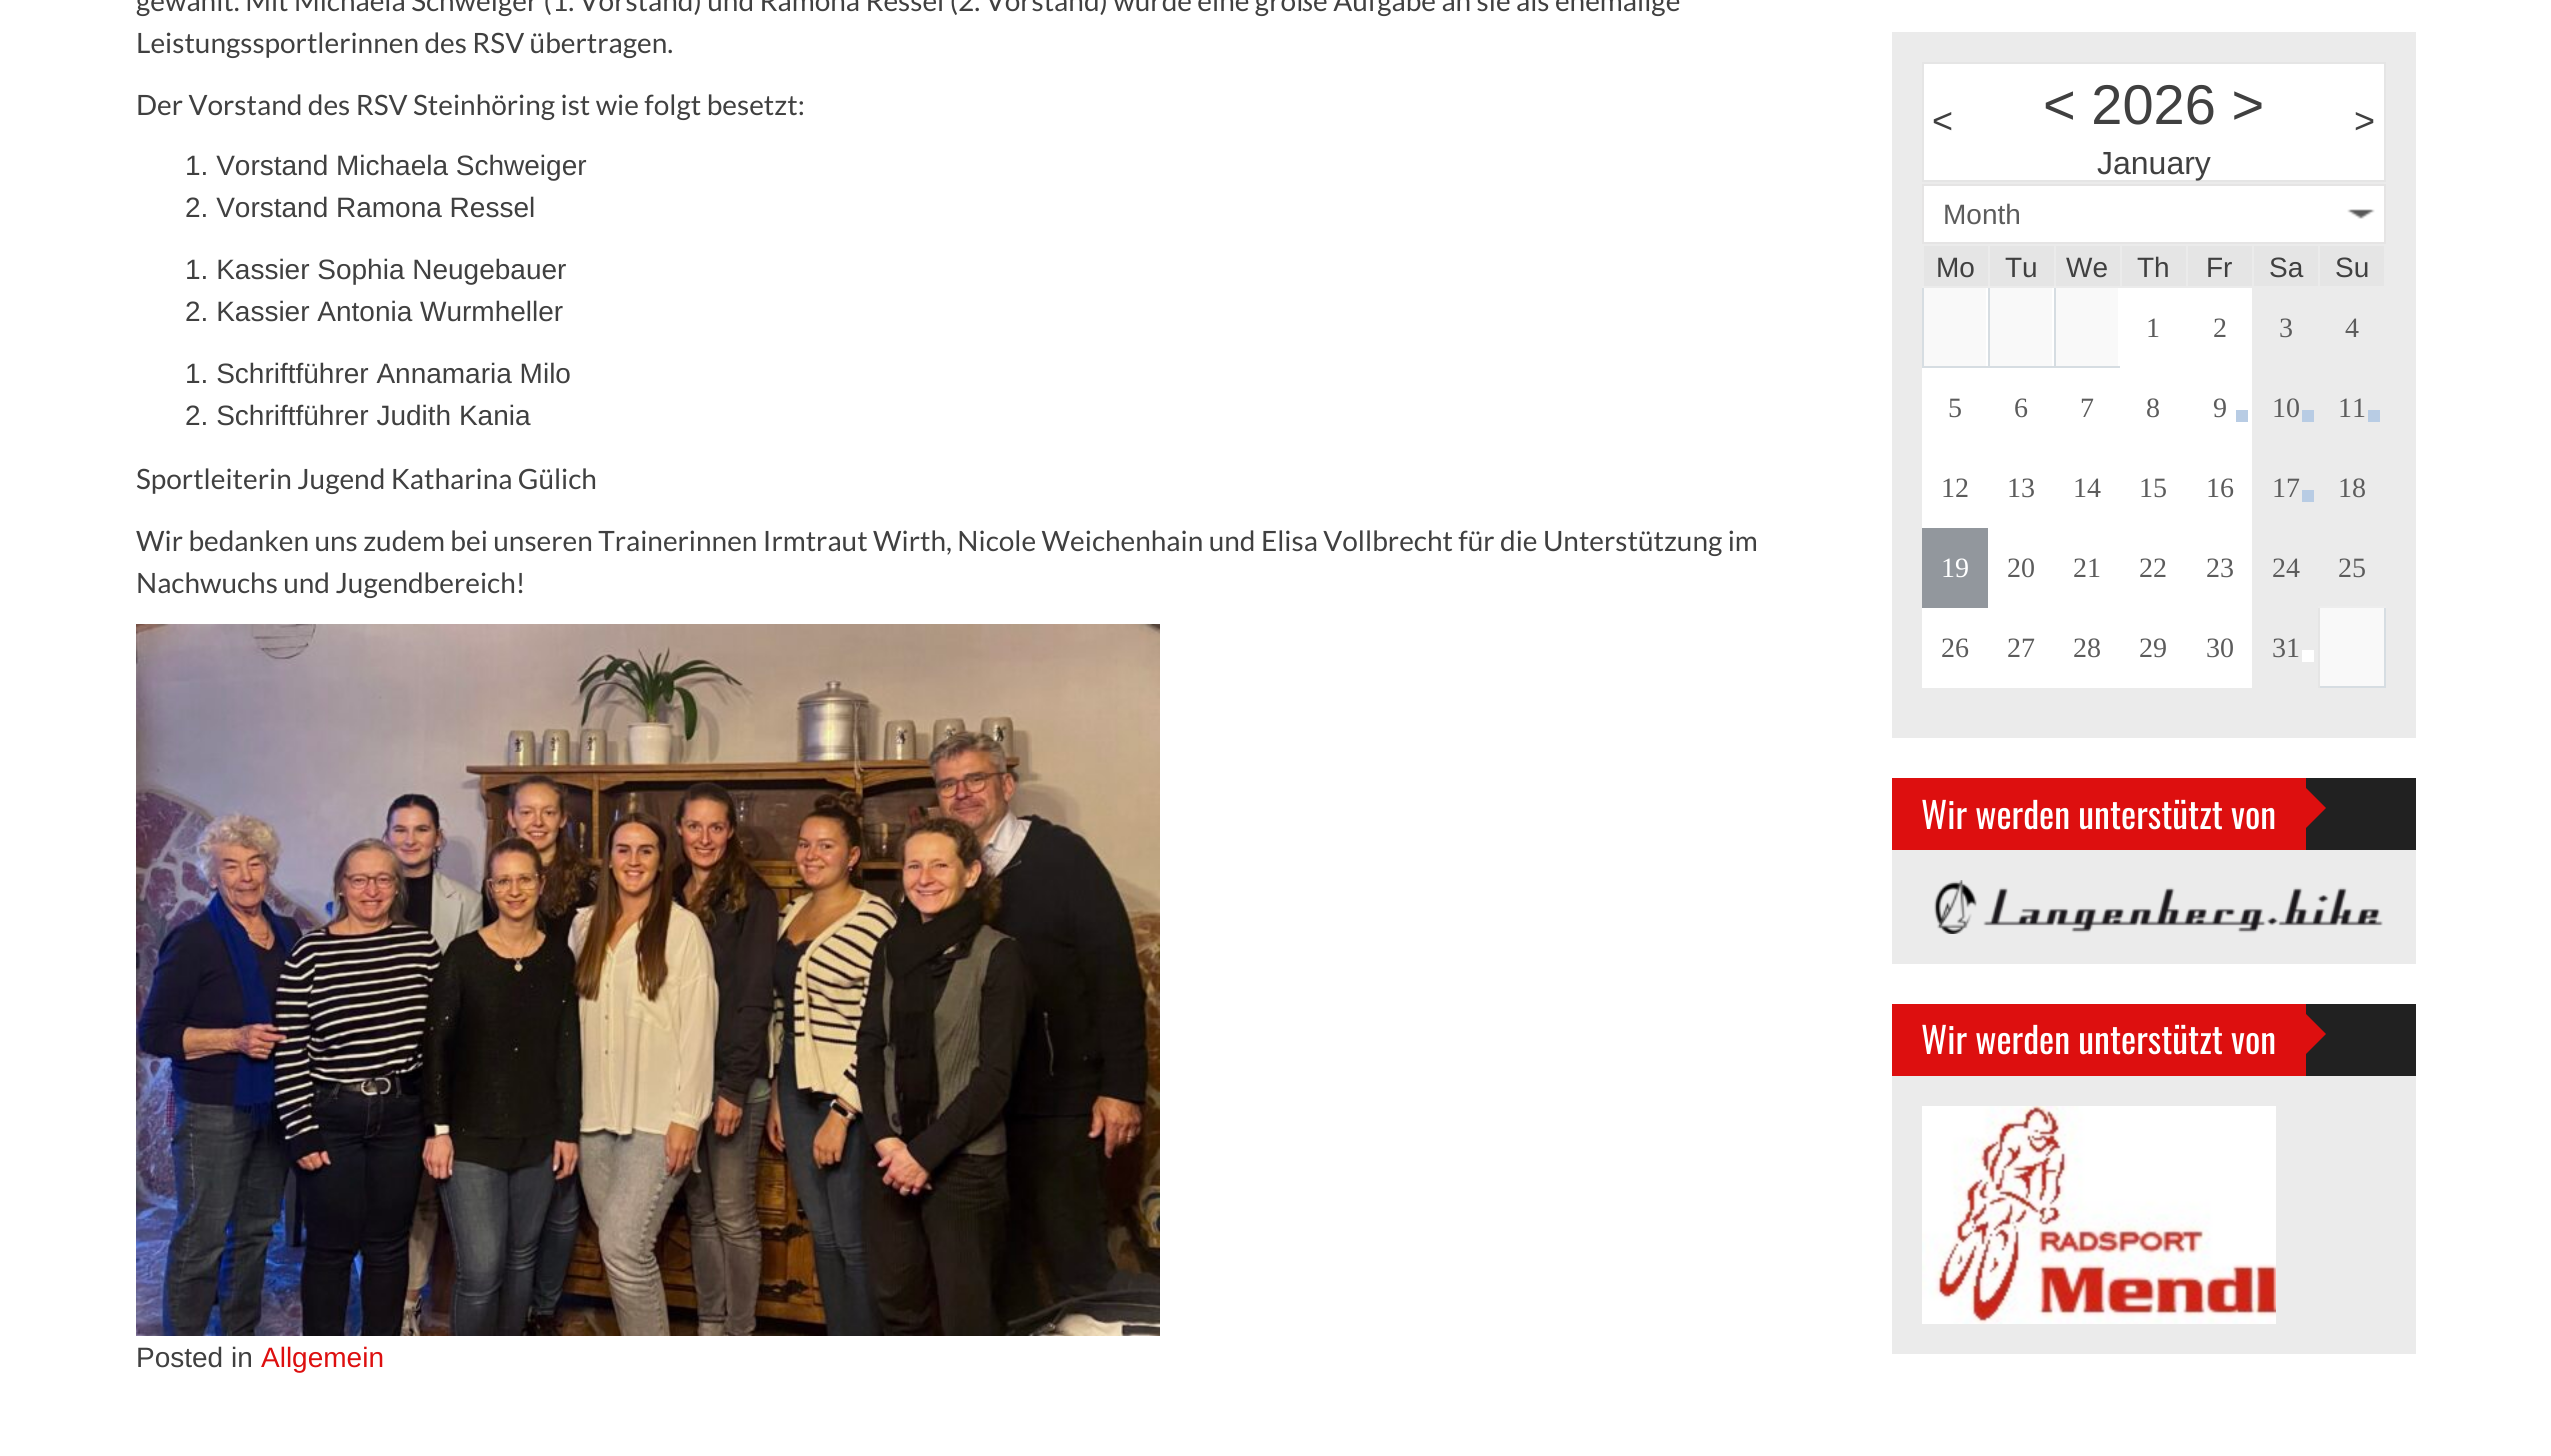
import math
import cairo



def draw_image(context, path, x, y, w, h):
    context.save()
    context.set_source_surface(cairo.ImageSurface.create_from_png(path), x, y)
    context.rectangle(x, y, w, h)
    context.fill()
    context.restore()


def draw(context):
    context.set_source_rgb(1, 1, 1)
    context.paint()
    draw_image(context, "images/1.png", 136, 624, 1024, 712)
    context.set_source_rgb(235 / 255, 235 / 255, 235 / 255)
    context.rectangle(1892, 32, 524, 706)
    context.fill()
    context.set_source_rgb(1, 1, 1)
    context.rectangle(1923, 63, 462, 118)
    context.fill_preserve()
    context.set_source_rgb(229 / 255, 229 / 255, 229 / 255)
    context.stroke()
    context.set_source_rgb(1, 1, 1)
    context.rectangle(1924, 186, 460, 56)
    context.fill()
    draw_image(context, "images/2.png", 2347, 209, 28, 10)
    context.rectangle(1923, 185, 462, 58)
    context.set_source_rgb(229 / 255, 228 / 255, 228 / 255)
    context.stroke()
    context.set_source_rgb(1, 1, 1)
    context.rectangle(1986, 288, 134, 78)
    context.fill()
    context.set_source_rgb(229 / 255, 229 / 255, 229 / 255)
    context.rectangle(1924, 246, 64, 40)
    context.fill()
    context.set_source_rgb(214 / 255, 221 / 255, 226 / 255)
    context.rectangle(2054, 366, 68, 2)
    context.fill()
    context.rectangle(2054, 286, 2, 82)
    context.fill()
    context.rectangle(1988, 366, 68, 2)
    context.fill()
    context.rectangle(1988, 286, 2, 82)
    context.fill()
    context.rectangle(1922, 366, 68, 2)
    context.fill()
    context.rectangle(1922, 286, 2, 82)
    context.fill()
    context.set_source_rgb(237 / 255, 237 / 255, 237 / 255)
    context.rectangle(1922, 286, 2, 2)
    context.fill()
    context.set_source_rgb(229 / 255, 229 / 255, 229 / 255)
    context.rectangle(1990, 246, 64, 40)
    context.fill()
    context.set_source_rgb(237 / 255, 237 / 255, 237 / 255)
    context.rectangle(1988, 286, 2, 2)
    context.fill()
    context.set_source_rgb(229 / 255, 229 / 255, 229 / 255)
    context.rectangle(2056, 246, 64, 40)
    context.fill()
    context.set_source_rgb(237 / 255, 237 / 255, 237 / 255)
    context.rectangle(2054, 286, 2, 2)
    context.fill()
    context.set_source_rgb(229 / 255, 229 / 255, 229 / 255)
    context.rectangle(2122, 246, 64, 40)
    context.fill()
    context.rectangle(2188, 246, 64, 40)
    context.fill()
    context.rectangle(2254, 246, 64, 40)
    context.fill()
    context.rectangle(2320, 246, 64, 40)
    context.fill()
    context.set_source_rgb(249 / 255, 249 / 255, 249 / 255)
    context.rectangle(1924, 288, 62, 78)
    context.fill()
    context.rectangle(1990, 288, 62, 78)
    context.fill()
    context.rectangle(2056, 288, 62, 78)
    context.fill()
    context.set_source_rgb(1, 1, 1)
    context.rectangle(2120, 288, 132, 80)
    context.fill()
    context.rectangle(1922, 368, 330, 80)
    context.fill()
    context.set_source_rgb(184 / 255, 204 / 255, 228 / 255)
    context.rectangle(2236, 410, 12, 12)
    context.fill()
    context.rectangle(2302, 410, 12, 12)
    context.fill()
    context.rectangle(2368, 410, 12, 12)
    context.fill()
    context.set_source_rgb(1, 1, 1)
    context.rectangle(1922, 448, 330, 80)
    context.fill()
    context.set_source_rgb(184 / 255, 204 / 255, 228 / 255)
    context.rectangle(2302, 490, 12, 12)
    context.fill()
    context.set_source_rgb(146 / 255, 151 / 255, 157 / 255)
    context.rectangle(1922, 528, 66, 80)
    context.fill()
    context.set_source_rgb(1, 1, 1)
    context.rectangle(1988, 528, 264, 80)
    context.fill()
    context.set_source_rgb(214 / 255, 221 / 255, 226 / 255)
    context.rectangle(2384, 606, 2, 82)
    context.fill()
    context.rectangle(2318, 686, 68, 2)
    context.fill()
    context.set_source_rgb(229 / 255, 229 / 255, 229 / 255)
    context.rectangle(2318, 606, 2, 82)
    context.fill()
    context.set_source_rgb(237 / 255, 237 / 255, 237 / 255)
    context.rectangle(2318, 606, 68, 2)
    context.fill()
    context.set_source_rgb(1, 1, 1)
    context.rectangle(1922, 608, 330, 80)
    context.fill()
    context.rectangle(2302, 650, 12, 12)
    context.fill()
    context.set_source_rgb(249 / 255, 249 / 255, 249 / 255)
    context.rectangle(2320, 608, 64, 78)
    context.fill()
    context.set_source_rgb(235 / 255, 235 / 255, 235 / 255)
    context.rectangle(1892, 850, 524, 114)
    context.fill()
    context.set_source_rgb(33 / 255, 33 / 255, 33 / 255)
    context.rectangle(2306, 778, 110, 72)
    context.fill()
    context.set_source_rgb(221 / 255, 15 / 255, 15 / 255)
    context.rectangle(1892, 778, 414, 72)
    context.fill()
    context.new_path()
    context.move_to(2306, 828)
    context.line_to(2306, 788)
    context.line_to(2326, 808)
    context.close_path()
    context.fill()
    draw_image(context, "images/3.png", 1934, 880, 449, 54)
    context.set_source_rgb(235 / 255, 235 / 255, 235 / 255)
    context.rectangle(1892, 1076, 524, 278)
    context.fill()
    context.set_source_rgb(33 / 255, 33 / 255, 33 / 255)
    context.rectangle(2306, 1004, 110, 72)
    context.fill()
    context.set_source_rgb(221 / 255, 15 / 255, 15 / 255)
    context.rectangle(1892, 1004, 414, 72)
    context.fill()
    context.new_path()
    context.move_to(2306, 1054)
    context.line_to(2306, 1014)
    context.line_to(2326, 1034)
    context.close_path()
    context.fill()
    draw_image(context, "images/4.png", 1922, 1106, 354, 218)
    context.select_font_face("Lato")
    context.set_font_size(28)
    context.set_source_rgb(64 / 255, 64 / 255, 64 / 255)
    context.move_to(136, 11)
    context.show_text("gewählt. Mit Michaela Schweiger (1. Vorstand) und Ramona Ressel (2. Vorstand) wurde eine große Aufgabe an sie als ehemalige")
    context.move_to(136, 53)
    context.show_text("Leistungssportlerinnen des RSV übertragen.")
    context.move_to(136, 115)
    context.show_text("Der Vorstand des RSV Steinhöring ist wie folgt besetzt:")
    context.select_font_face("Liberation Sans")
    context.move_to(185, 175)
    context.show_text("1. Vorstand Michaela Schweiger")
    context.move_to(185, 217)
    context.show_text("2. Vorstand Ramona Ressel")
    context.move_to(185, 279)
    context.show_text("1. Kassier Sophia Neugebauer")
    context.move_to(185, 321)
    context.show_text("2. Kassier Antonia Wurmheller")
    context.move_to(185, 383)
    context.show_text("1. Schriftführer Annamaria Milo")
    context.move_to(185, 425)
    context.show_text("2. Schriftführer Judith Kania")
    context.select_font_face("Lato")
    context.move_to(136, 489)
    context.show_text("Sportleiterin Jugend Katharina Gülich")
    context.move_to(136, 551)
    context.show_text("Wir bedanken uns zudem bei unseren Trainerinnen Irmtraut Wirth, Nicole Weichenhain und Elisa Vollbrecht für die Unterstützung im")
    context.move_to(136, 593)
    context.show_text("Nachwuchs und Jugendbereich!")
    context.select_font_face("Liberation Sans")
    context.move_to(136, 1367)
    context.show_text("Posted in")
    context.set_source_rgb(221 / 255, 15 / 255, 15 / 255)
    context.move_to(261, 1367)
    context.show_text("Allgemein")
    context.set_font_size(36)
    context.set_source_rgb(64 / 255, 64 / 255, 64 / 255)
    context.move_to(1932, 133)
    context.show_text("<")
    context.set_font_size(56)
    context.move_to(2043, 124)
    context.show_text("< 2026 >")
    context.set_font_size(32)
    context.move_to(2097, 174)
    context.show_text("January")
    context.set_font_size(36)
    context.move_to(2354, 133)
    context.show_text(">")
    context.set_font_size(28)
    context.set_source_rgb(92 / 255, 92 / 255, 92 / 255)
    context.move_to(1943, 224)
    context.show_text("Month")
    context.set_source_rgb(64 / 255, 64 / 255, 64 / 255)
    context.move_to(1936, 277)
    context.show_text("Mo")
    context.move_to(2005, 277)
    context.show_text("Tu")
    context.move_to(2066, 277)
    context.show_text("We")
    context.move_to(2137, 277)
    context.show_text("Th")
    context.move_to(2206, 277)
    context.show_text("Fr")
    context.move_to(2269, 277)
    context.show_text("Sa")
    context.move_to(2335, 277)
    context.show_text("Su")
    context.select_font_face("Liberation Serif")
    context.set_source_rgb(92 / 255, 92 / 255, 92 / 255)
    context.move_to(2146, 337)
    context.show_text("1")
    context.move_to(2213, 337)
    context.show_text("2")
    context.move_to(2279, 337)
    context.show_text("3")
    context.move_to(2345, 337)
    context.show_text("4")
    context.move_to(1948, 417)
    context.show_text("5")
    context.move_to(2014, 417)
    context.show_text("6")
    context.move_to(2080, 417)
    context.show_text("7")
    context.move_to(2146, 417)
    context.show_text("8")
    context.move_to(2213, 417)
    context.show_text("9")
    context.move_to(2272, 417)
    context.show_text("10")
    context.move_to(2338, 417)
    context.show_text("11")
    context.move_to(1941, 497)
    context.show_text("12")
    context.move_to(2007, 497)
    context.show_text("13")
    context.move_to(2073, 497)
    context.show_text("14")
    context.move_to(2139, 497)
    context.show_text("15")
    context.move_to(2206, 497)
    context.show_text("16")
    context.move_to(2272, 497)
    context.show_text("17")
    context.move_to(2338, 497)
    context.show_text("18")
    context.set_source_rgb(1, 1, 1)
    context.move_to(1941, 577)
    context.show_text("19")
    context.set_source_rgb(92 / 255, 92 / 255, 92 / 255)
    context.move_to(2007, 577)
    context.show_text("20")
    context.move_to(2073, 577)
    context.show_text("21")
    context.move_to(2139, 577)
    context.show_text("22")
    context.move_to(2206, 577)
    context.show_text("23")
    context.move_to(2272, 577)
    context.show_text("24")
    context.move_to(2338, 577)
    context.show_text("25")
    context.move_to(1941, 657)
    context.show_text("26")
    context.move_to(2007, 657)
    context.show_text("27")
    context.move_to(2073, 657)
    context.show_text("28")
    context.move_to(2139, 657)
    context.show_text("29")
    context.move_to(2206, 657)
    context.show_text("30")
    context.move_to(2272, 657)
    context.show_text("31")
    context.select_font_face("Oswald")
    context.set_font_size(36)
    context.set_source_rgb(1, 1, 1)
    context.move_to(1921, 829)
    context.show_text("Wir werden unterstützt von")
    context.move_to(1921, 1054)
    context.show_text("Wir werden unterstützt von")


surface = cairo.ImageSurface(cairo.Format.RGB24, 2551, 1456)
context = cairo.Context(surface)
options = cairo.FontOptions()
options.set_hint_metrics(cairo.HintMetrics.OFF)
options.set_hint_style(cairo.HintStyle.NONE)
context.set_font_options(options)
context.set_miter_limit(4)
draw(context)
surface.write_to_png("out.png")
